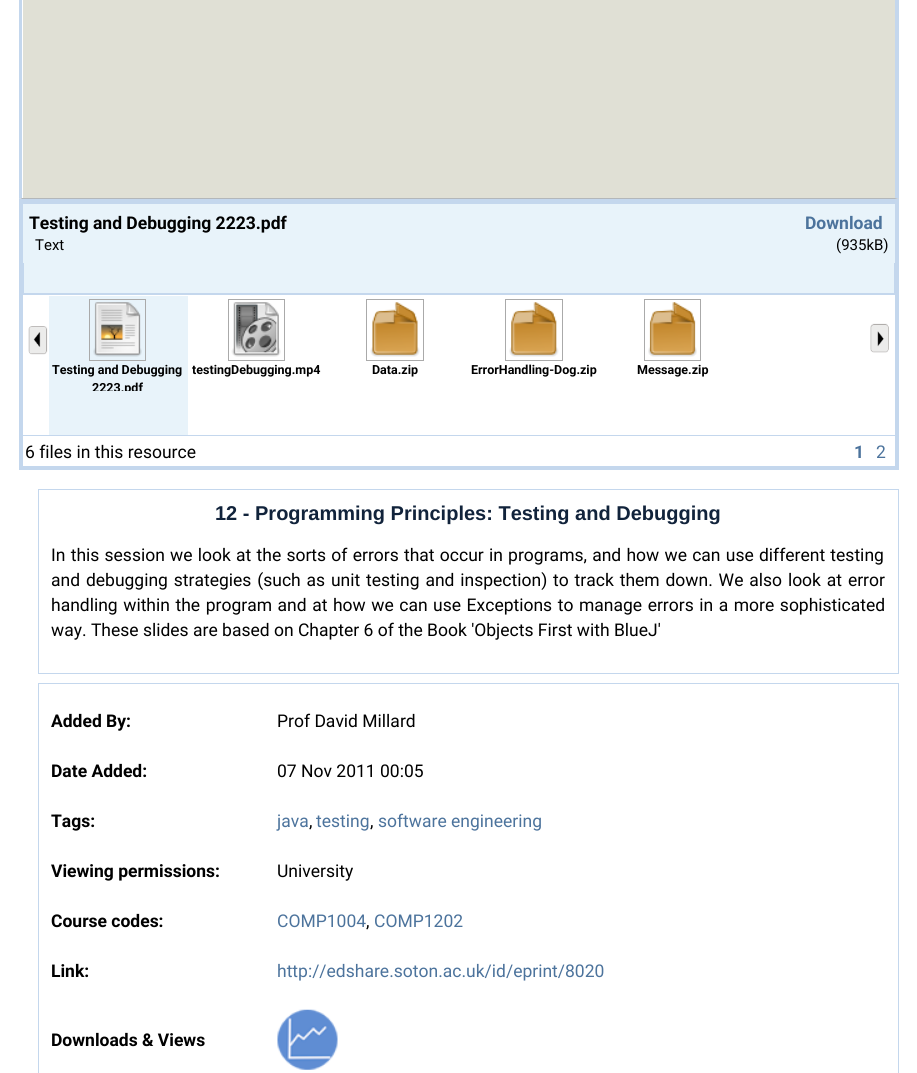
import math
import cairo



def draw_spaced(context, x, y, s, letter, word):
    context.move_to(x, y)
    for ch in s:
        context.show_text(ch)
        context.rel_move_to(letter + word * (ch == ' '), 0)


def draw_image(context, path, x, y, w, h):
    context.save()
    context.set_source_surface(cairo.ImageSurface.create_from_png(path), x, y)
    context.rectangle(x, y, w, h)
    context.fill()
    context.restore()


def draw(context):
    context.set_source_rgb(1, 1, 1)
    context.paint()
    context.set_source_rgb(224 / 255, 224 / 255, 213 / 255)
    context.rectangle(23, 0, 872, 198)
    context.fill()
    context.set_source_rgb(196 / 255, 215 / 255, 237 / 255)
    context.new_path()
    context.move_to(899, -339)
    context.line_to(899, 199)
    context.line_to(895, 198)
    context.line_to(895, -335)
    context.close_path()
    context.fill()
    context.set_source_rgb(179 / 255, 183 / 255, 186 / 255)
    context.new_path()
    context.move_to(899, 199)
    context.line_to(19, 199)
    context.line_to(22, 198)
    context.line_to(895, 198)
    context.close_path()
    context.fill()
    context.set_source_rgb(196 / 255, 215 / 255, 237 / 255)
    context.new_path()
    context.move_to(19, 199)
    context.line_to(19, -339)
    context.line_to(22, -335)
    context.line_to(22, 198)
    context.close_path()
    context.fill()
    context.rectangle(21, 201, 876, 267)
    context.set_line_width(4)
    context.stroke()
    context.set_source_rgb(232 / 255, 243 / 255, 250 / 255)
    context.rectangle(23, 204, 872, 89)
    context.fill()
    context.set_source_rgb(196 / 255, 215 / 255, 237 / 255)
    context.rectangle(23, 294, 872, 1)
    context.fill()
    context.rectangle(23, 203, 872, 1)
    context.fill()
    context.rectangle(894, 263, 1, 31)
    context.fill()
    context.rectangle(23, 293, 872, 1)
    context.fill()
    context.rectangle(23, 263, 1, 31)
    context.fill()
    draw_image(context, "images/1.png", 28, 326, 20, 29)
    draw_image(context, "images/2.png", 870, 323, 19, 30)
    context.set_source_rgb(232 / 255, 243 / 255, 250 / 255)
    context.rectangle(49, 296, 139, 139)
    context.fill()
    context.rectangle(89.5, 299.5, 56, 61)
    context.set_source_rgb(170 / 255, 170 / 255, 170 / 255)
    context.set_line_width(1)
    context.stroke()
    draw_image(context, "images/3.png", 93, 302, 49, 55)
    context.rectangle(228.5, 299.5, 56, 61)
    context.stroke()
    draw_image(context, "images/4.png", 231, 302, 50, 55)
    context.rectangle(366.5, 299.5, 57, 61)
    context.stroke()
    draw_image(context, "images/5.png", 370, 302, 50, 55)
    context.rectangle(505.5, 299.5, 57, 61)
    context.stroke()
    draw_image(context, "images/6.png", 509, 302, 50, 55)
    context.rectangle(644.5, 299.5, 56, 61)
    context.stroke()
    draw_image(context, "images/7.png", 648, 302, 49, 55)
    context.set_source_rgb(196 / 255, 215 / 255, 237 / 255)
    context.rectangle(23, 435, 872, 1)
    context.fill()
    context.rectangle(38.5, 489.5, 860, 184)
    context.stroke()
    context.rectangle(38.5, 683.5, 860, 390)
    context.stroke()
    draw_image(context, "images/8.png", 277, 1009, 61, 61)
    context.select_font_face("Roboto", cairo.FontSlant.NORMAL, cairo.FontWeight.BOLD)
    context.set_font_size(17.5)
    context.set_source_rgb(0, 0, 0)
    context.move_to(29, 229)
    context.show_text("Testing and Debugging 2223.pdf")
    context.select_font_face("Roboto")
    context.set_font_size(15)
    context.move_to(35, 250)
    context.show_text("Text")
    context.select_font_face("Roboto", cairo.FontSlant.NORMAL, cairo.FontWeight.BOLD)
    context.set_font_size(17.5)
    context.set_source_rgb(76 / 255, 115 / 255, 156 / 255)
    context.move_to(805, 229)
    context.show_text("Download")
    context.select_font_face("Roboto")
    context.set_font_size(15)
    context.set_source_rgb(0, 0, 0)
    context.move_to(836, 250)
    context.show_text("(935kB)")
    context.select_font_face("Roboto", cairo.FontSlant.NORMAL, cairo.FontWeight.BOLD)
    context.set_font_size(12.5)
    context.move_to(52, 374)
    context.show_text("Testing and Debugging")
    context.save()
    context.rectangle(50, 361, 136, 30)
    context.clip()
    context.move_to(92, 392)
    context.show_text("2223.pdf")
    context.restore()
    context.move_to(192, 374)
    context.show_text("testingDebugging.mp4")
    context.move_to(372, 374)
    context.show_text("Data.zip")
    context.move_to(471, 374)
    context.show_text("ErrorHandling-Dog.zip")
    context.move_to(637, 374)
    context.show_text("Message.zip")
    context.select_font_face("Roboto")
    context.set_font_size(17.5)
    context.move_to(25, 458)
    context.show_text("6 files in this resource")
    context.select_font_face("Roboto", cairo.FontSlant.NORMAL, cairo.FontWeight.BOLD)
    context.set_source_rgb(76 / 255, 115 / 255, 156 / 255)
    context.move_to(854, 458)
    context.show_text("1")
    context.select_font_face("Roboto")
    context.move_to(876, 458)
    context.show_text("2")
    context.select_font_face("Liberation Sans", cairo.FontSlant.NORMAL, cairo.FontWeight.BOLD)
    context.set_font_size(20)
    context.set_source_rgb(17 / 255, 35 / 255, 59 / 255)
    context.move_to(215, 520)
    context.show_text("12 - Programming Principles: Testing and Debugging")
    context.select_font_face("Roboto")
    context.set_font_size(17.5)
    context.set_source_rgb(0, 0, 0)
    draw_spaced(context, 51, 561, "In this session we look at the sorts of errors that occur in programs, and how we can use different testing", 0, 0.9)
    draw_spaced(context, 51, 586, "and debugging strategies (such as unit testing and inspection) to track them down. We also look at error", 0, 1.5)
    draw_spaced(context, 51, 611, "handling within the program and at how we can use Exceptions to manage errors in a more sophisticated", 0, 1.2)
    context.move_to(51, 636)
    context.show_text("way. These slides are based on Chapter 6 of the Book 'Objects First with BlueJ'")
    context.select_font_face("Roboto", cairo.FontSlant.NORMAL, cairo.FontWeight.BOLD)
    context.move_to(51, 727)
    context.show_text("Added By:")
    context.select_font_face("Roboto")
    context.move_to(277, 727)
    context.show_text("Prof David Millard")
    context.select_font_face("Roboto", cairo.FontSlant.NORMAL, cairo.FontWeight.BOLD)
    context.move_to(51, 777)
    context.show_text("Date Added:")
    context.select_font_face("Roboto")
    context.move_to(277, 777)
    context.show_text("07 Nov 2011 00:05")
    context.select_font_face("Roboto", cairo.FontSlant.NORMAL, cairo.FontWeight.BOLD)
    context.move_to(51, 827)
    context.show_text("Tags:")
    context.select_font_face("Roboto")
    context.set_source_rgb(76 / 255, 115 / 255, 156 / 255)
    context.move_to(277, 827)
    context.show_text("java")
    context.set_source_rgb(0, 0, 0)
    context.move_to(309, 827)
    context.show_text(",")
    context.set_source_rgb(76 / 255, 115 / 255, 156 / 255)
    context.move_to(316, 827)
    context.show_text("testing")
    context.set_source_rgb(0, 0, 0)
    context.move_to(370, 827)
    context.show_text(",")
    context.set_source_rgb(76 / 255, 115 / 255, 156 / 255)
    context.move_to(378, 827)
    context.show_text("software engineering")
    context.select_font_face("Roboto", cairo.FontSlant.NORMAL, cairo.FontWeight.BOLD)
    context.set_source_rgb(0, 0, 0)
    context.move_to(51, 877)
    context.show_text("Viewing permissions:")
    context.select_font_face("Roboto")
    context.move_to(277, 877)
    context.show_text("University")
    context.select_font_face("Roboto", cairo.FontSlant.NORMAL, cairo.FontWeight.BOLD)
    context.move_to(51, 927)
    context.show_text("Course codes:")
    context.select_font_face("Roboto")
    context.set_source_rgb(76 / 255, 115 / 255, 156 / 255)
    context.move_to(277, 927)
    context.show_text("COMP1004")
    context.set_source_rgb(0, 0, 0)
    context.move_to(366, 927)
    context.show_text(",")
    context.set_source_rgb(76 / 255, 115 / 255, 156 / 255)
    context.move_to(374, 927)
    context.show_text("COMP1202")
    context.select_font_face("Roboto", cairo.FontSlant.NORMAL, cairo.FontWeight.BOLD)
    context.set_source_rgb(0, 0, 0)
    context.move_to(51, 977)
    context.show_text("Link:")
    context.select_font_face("Roboto")
    context.set_source_rgb(76 / 255, 115 / 255, 156 / 255)
    context.move_to(277, 977)
    context.show_text("http://edshare.soton.ac.uk/id/eprint/8020")
    context.select_font_face("Roboto", cairo.FontSlant.NORMAL, cairo.FontWeight.BOLD)
    context.set_source_rgb(0, 0, 0)
    context.move_to(51, 1046)
    context.show_text("Downloads & Views")


surface = cairo.ImageSurface(cairo.Format.RGB24, 917, 1073)
context = cairo.Context(surface)
options = cairo.FontOptions()
options.set_hint_metrics(cairo.HintMetrics.OFF)
options.set_hint_style(cairo.HintStyle.NONE)
context.set_font_options(options)
context.set_miter_limit(4)
draw(context)
surface.write_to_png("out.png")
